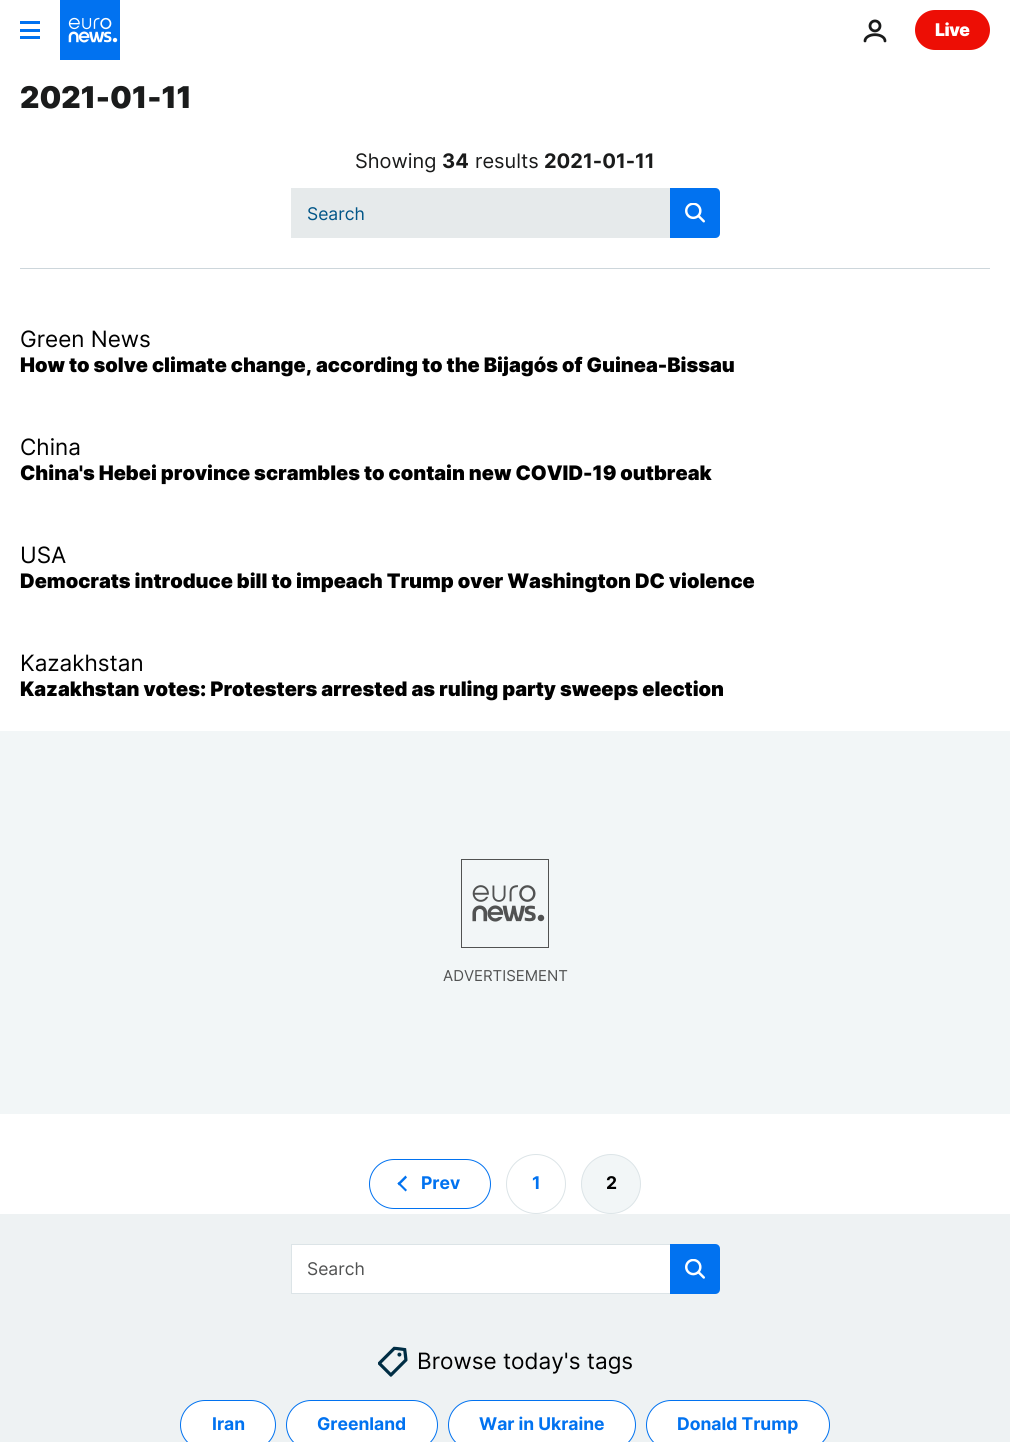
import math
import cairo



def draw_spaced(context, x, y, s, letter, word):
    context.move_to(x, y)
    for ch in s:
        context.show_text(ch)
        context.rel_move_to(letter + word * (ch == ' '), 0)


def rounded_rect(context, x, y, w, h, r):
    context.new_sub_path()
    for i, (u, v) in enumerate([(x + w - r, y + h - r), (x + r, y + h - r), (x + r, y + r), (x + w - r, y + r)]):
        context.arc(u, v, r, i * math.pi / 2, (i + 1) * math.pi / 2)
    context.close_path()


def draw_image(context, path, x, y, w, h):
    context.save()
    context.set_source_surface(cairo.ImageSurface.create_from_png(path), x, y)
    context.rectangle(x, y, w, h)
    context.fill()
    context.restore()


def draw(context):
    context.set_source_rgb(1, 1, 1)
    context.paint()
    context.set_source_rgb(1 / 255, 114 / 255, 240 / 255)
    context.rectangle(20, 21, 20, 3)
    context.fill()
    context.rectangle(20, 29, 20, 3)
    context.fill()
    context.rectangle(20, 36, 20, 3)
    context.fill()
    draw_image(context, "images/1.png", 60, 0, 60, 60)
    draw_image(context, "images/2.png", 863, 19, 24, 24)
    context.set_source_rgb(237 / 255, 14 / 255, 5 / 255)
    rounded_rect(context, 915, 10, 75, 40, 20)
    context.fill()
    context.set_source_rgb(205 / 255, 214 / 255, 219 / 255)
    context.rectangle(20, 268, 970, 1)
    context.fill()
    context.set_source_rgb(230 / 255, 234 / 255, 235 / 255)
    context.new_path()
    context.move_to(291.5, 188.5)
    context.line_to(715, 188.5)
    context.curve_to(717.5, 188.5, 719.5, 190.5, 719.5, 193)
    context.line_to(719.5, 233)
    context.curve_to(719.5, 235.5, 717.5, 237.5, 715, 237.5)
    context.line_to(291.5, 237.5)
    context.close_path()
    context.fill_preserve()
    context.set_line_width(1)
    context.stroke()
    context.set_source_rgb(1 / 255, 114 / 255, 240 / 255)
    context.new_path()
    context.move_to(670, 188)
    context.line_to(715, 188)
    context.curve_to(718, 188, 720, 190, 720, 193)
    context.line_to(720, 233)
    context.curve_to(720, 236, 718, 238, 715, 238)
    context.line_to(670, 238)
    context.close_path()
    context.fill()
    draw_image(context, "images/3.png", 685, 203, 20, 20)
    context.set_source_rgb(242 / 255, 246 / 255, 247 / 255)
    context.rectangle(0, 731, 1010, 383)
    context.fill()
    draw_image(context, "images/4.png", 461, 859, 88, 89)
    rounded_rect(context, 369.5, 1159.5, 121, 49, 24.5)
    context.set_source_rgb(1 / 255, 114 / 255, 240 / 255)
    context.stroke()
    context.new_path()
    context.move_to(405.5, 1191.5)
    context.line_to(397.5, 1183.5)
    context.line_to(399, 1182)
    context.line_to(407, 1190)
    context.close_path()
    context.fill()
    context.new_path()
    context.move_to(399, 1185.5)
    context.line_to(397.5, 1183.5)
    context.line_to(405.5, 1175.5)
    context.line_to(407, 1177.5)
    context.close_path()
    context.fill()
    context.arc(536, 1184, 29.5, 0, 2 * math.pi)
    context.set_source_rgb(220 / 255, 228 / 255, 231 / 255)
    context.stroke()
    context.set_source_rgb(242 / 255, 246 / 255, 247 / 255)
    context.arc(611, 1184, 29.5, 0, 2 * math.pi)
    context.fill_preserve()
    context.set_source_rgb(220 / 255, 228 / 255, 231 / 255)
    context.stroke()
    context.set_source_rgb(238 / 255, 242 / 255, 243 / 255)
    context.rectangle(0, 1214, 1010, 228)
    context.fill()
    context.set_source_rgb(1, 1, 1)
    context.new_path()
    context.move_to(291.5, 1244.5)
    context.line_to(715, 1244.5)
    context.curve_to(717.5, 1244.5, 719.5, 1246.5, 719.5, 1249)
    context.line_to(719.5, 1289)
    context.curve_to(719.5, 1291.5, 717.5, 1293.5, 715, 1293.5)
    context.line_to(291.5, 1293.5)
    context.close_path()
    context.fill_preserve()
    context.set_source_rgb(220 / 255, 228 / 255, 231 / 255)
    context.stroke()
    context.set_source_rgb(1 / 255, 114 / 255, 240 / 255)
    context.new_path()
    context.move_to(670, 1244)
    context.line_to(715, 1244)
    context.curve_to(718, 1244, 720, 1246, 720, 1249)
    context.line_to(720, 1289)
    context.curve_to(720, 1292, 718, 1294, 715, 1294)
    context.line_to(670, 1294)
    context.close_path()
    context.fill()
    draw_image(context, "images/5.png", 685, 1259, 20, 20)
    draw_image(context, "images/6.png", 378, 1346, 30, 31)
    context.set_source_rgb(1, 1, 1)
    rounded_rect(context, 180.5, 1400.5, 95, 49, 24.5)
    context.fill_preserve()
    context.set_source_rgb(1 / 255, 114 / 255, 240 / 255)
    context.stroke()
    context.set_source_rgb(1, 1, 1)
    rounded_rect(context, 286.5, 1400.5, 151, 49, 24.5)
    context.fill_preserve()
    context.set_source_rgb(1 / 255, 114 / 255, 240 / 255)
    context.stroke()
    context.set_source_rgb(1, 1, 1)
    rounded_rect(context, 448.5, 1400.5, 187, 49, 24.5)
    context.fill_preserve()
    context.set_source_rgb(1 / 255, 114 / 255, 240 / 255)
    context.stroke()
    context.set_source_rgb(1, 1, 1)
    rounded_rect(context, 646.5, 1400.5, 183, 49, 24.5)
    context.fill_preserve()
    context.set_source_rgb(1 / 255, 114 / 255, 240 / 255)
    context.stroke()
    context.select_font_face("Inter Black")
    context.set_font_size(17.5)
    context.set_source_rgb(1, 1, 1)
    draw_spaced(context, 935, 36, "Live", -0.5, 0)
    context.set_font_size(30)
    context.set_source_rgb(26 / 255, 27 / 255, 27 / 255)
    context.move_to(20, 108)
    context.show_text("2021-01-11")
    context.select_font_face("Inter")
    context.set_font_size(20)
    context.move_to(355, 168)
    context.show_text("Showing")
    context.select_font_face("Inter", cairo.FontSlant.NORMAL, cairo.FontWeight.BOLD)
    context.move_to(442, 168)
    context.show_text("34")
    context.select_font_face("Inter")
    context.move_to(475, 168)
    context.show_text("results")
    context.select_font_face("Inter", cairo.FontSlant.NORMAL, cairo.FontWeight.BOLD)
    context.move_to(544, 168)
    context.show_text("2021-01-11")
    context.select_font_face("Inter")
    context.set_font_size(17.5)
    context.set_source_rgb(0, 85 / 255, 135 / 255)
    context.move_to(307, 220)
    context.show_text("Search")
    context.set_font_size(22.5)
    context.set_source_rgb(0, 0, 0)
    context.move_to(20, 347)
    context.show_text("Green News")
    context.select_font_face("Inter Black")
    context.set_font_size(20)
    context.move_to(20, 372)
    context.show_text("How to solve climate change, according to the Bijagós of Guinea-Bissau")
    context.select_font_face("Inter")
    context.set_font_size(22.5)
    context.move_to(20, 455)
    context.show_text("China")
    context.select_font_face("Inter Black")
    context.set_font_size(20)
    context.move_to(20, 480)
    context.show_text("China's Hebei province scrambles to contain new COVID-19 outbreak")
    context.select_font_face("Inter")
    context.set_font_size(22.5)
    context.move_to(20, 563)
    context.show_text("USA")
    context.select_font_face("Inter Black")
    context.set_font_size(20)
    context.move_to(20, 588)
    context.show_text("Democrats introduce bill to impeach Trump over Washington DC violence")
    context.select_font_face("Inter")
    context.set_font_size(22.5)
    context.move_to(20, 671)
    context.show_text("Kazakhstan")
    context.select_font_face("Inter Black")
    context.set_font_size(20)
    context.move_to(20, 696)
    context.show_text("Kazakhstan votes: Protesters arrested as ruling party sweeps election")
    context.select_font_face("Inter")
    context.set_font_size(15)
    context.set_source_rgb(81 / 255, 82 / 255, 82 / 255)
    context.move_to(443, 981)
    context.show_text("ADVERTISEMENT")
    context.select_font_face("Inter", cairo.FontSlant.NORMAL, cairo.FontWeight.BOLD)
    context.set_font_size(17.5)
    context.set_source_rgb(1 / 255, 114 / 255, 240 / 255)
    context.move_to(421, 1189)
    context.show_text("Prev")
    context.move_to(532, 1189)
    context.show_text("1")
    context.set_source_rgb(0, 0, 0)
    context.move_to(606, 1189)
    context.show_text("2")
    context.select_font_face("Inter")
    context.set_source_rgb(81 / 255, 82 / 255, 82 / 255)
    context.move_to(307, 1275)
    context.show_text("Search")
    context.set_font_size(22.5)
    context.set_source_rgb(0, 0, 0)
    context.move_to(417, 1369)
    context.show_text("Browse today's tags")
    context.select_font_face("Inter", cairo.FontSlant.NORMAL, cairo.FontWeight.BOLD)
    context.set_font_size(17.5)
    context.set_source_rgb(1 / 255, 114 / 255, 240 / 255)
    context.move_to(212, 1430)
    context.show_text("Iran")
    context.move_to(317, 1430)
    context.show_text("Greenland")
    context.move_to(479, 1430)
    context.show_text("War in Ukraine")
    context.move_to(677, 1430)
    context.show_text("Donald Trump")


surface = cairo.ImageSurface(cairo.Format.RGB24, 1010, 1442)
context = cairo.Context(surface)
options = cairo.FontOptions()
options.set_hint_metrics(cairo.HintMetrics.OFF)
options.set_hint_style(cairo.HintStyle.NONE)
context.set_font_options(options)
context.set_miter_limit(4)
draw(context)
surface.write_to_png("out.png")
